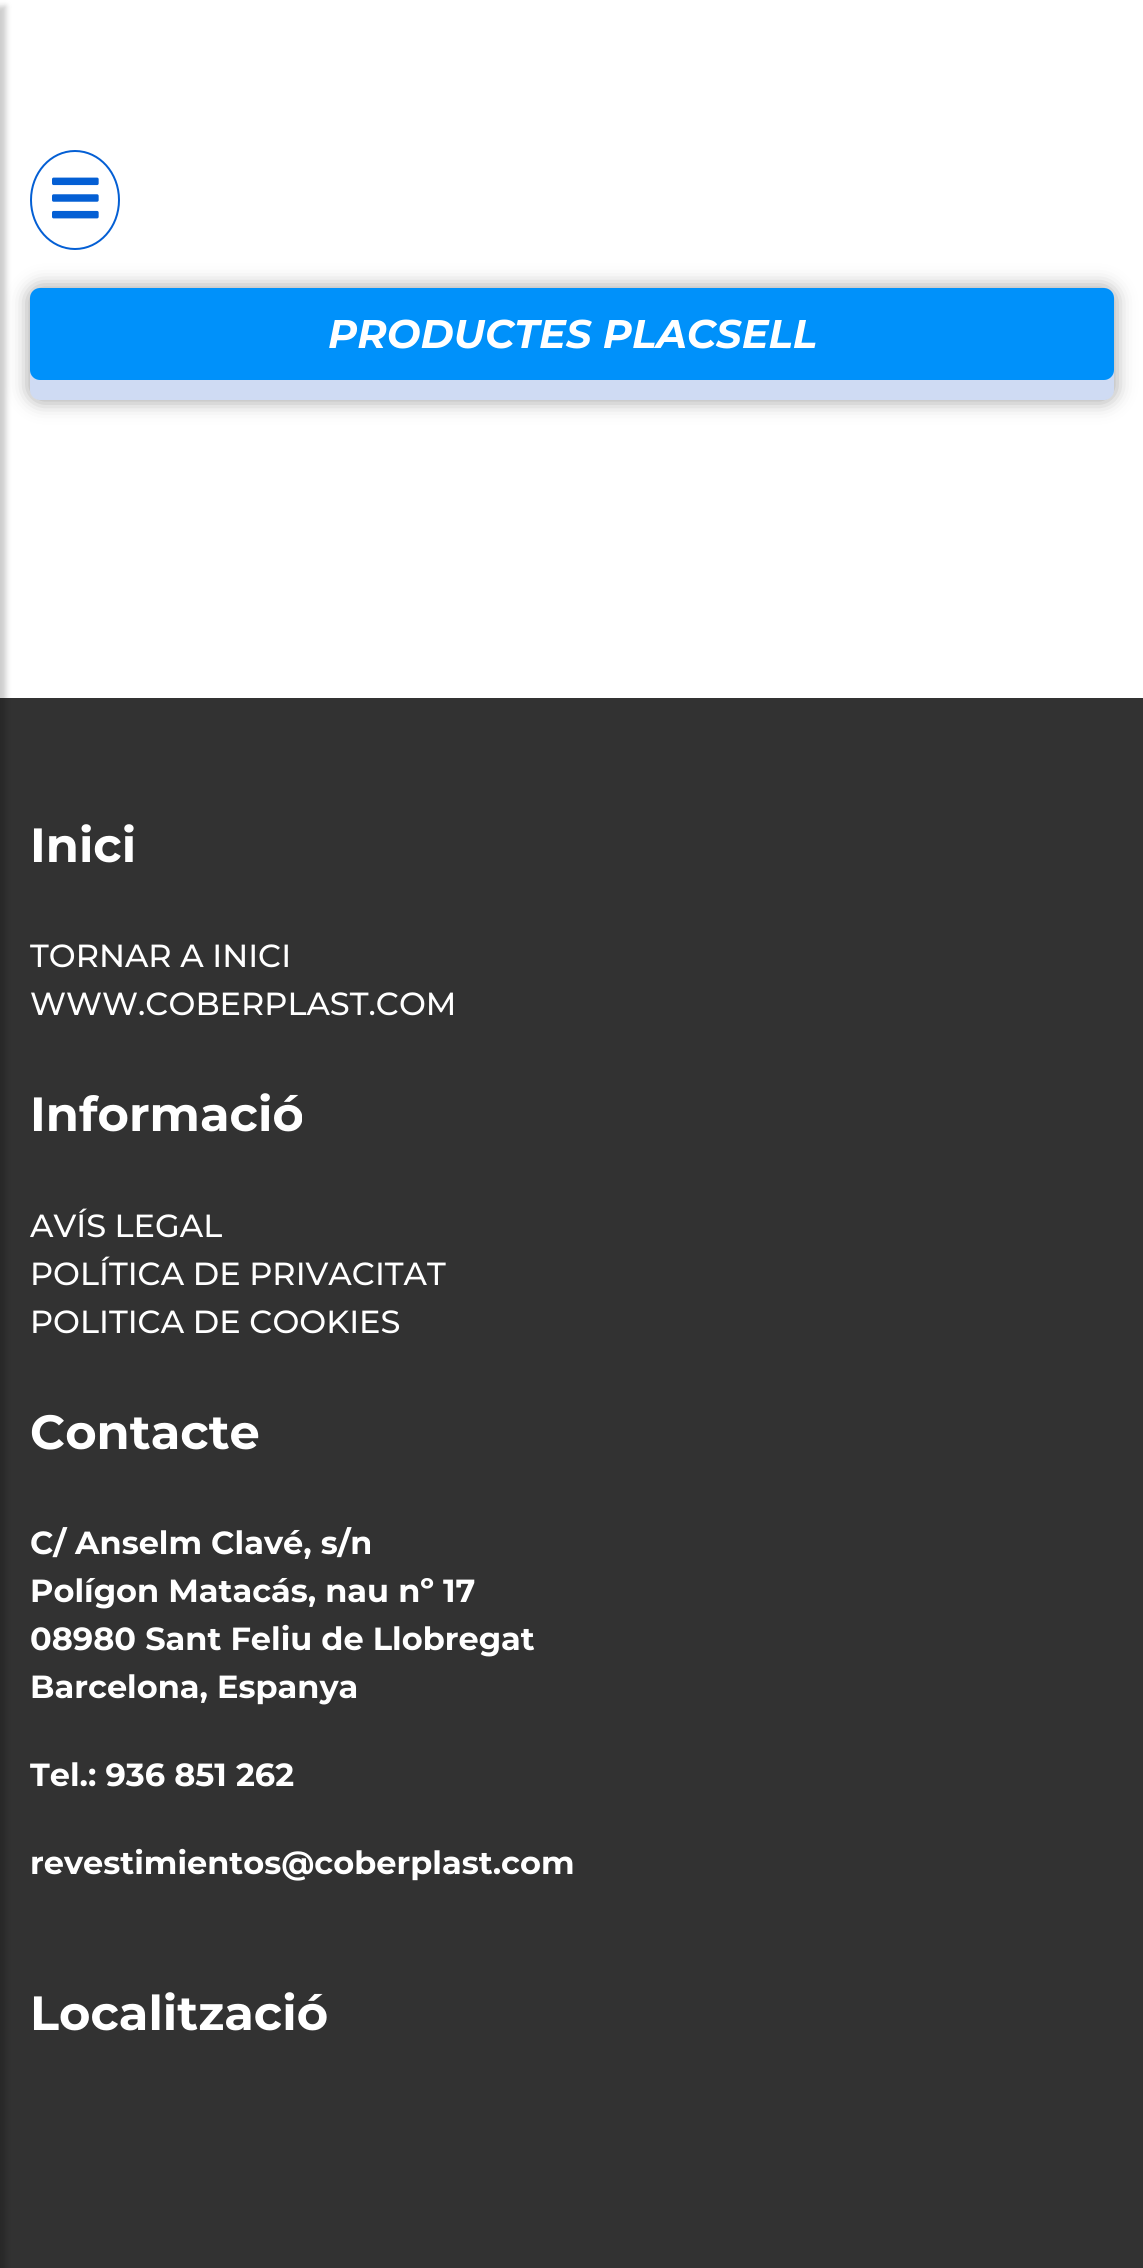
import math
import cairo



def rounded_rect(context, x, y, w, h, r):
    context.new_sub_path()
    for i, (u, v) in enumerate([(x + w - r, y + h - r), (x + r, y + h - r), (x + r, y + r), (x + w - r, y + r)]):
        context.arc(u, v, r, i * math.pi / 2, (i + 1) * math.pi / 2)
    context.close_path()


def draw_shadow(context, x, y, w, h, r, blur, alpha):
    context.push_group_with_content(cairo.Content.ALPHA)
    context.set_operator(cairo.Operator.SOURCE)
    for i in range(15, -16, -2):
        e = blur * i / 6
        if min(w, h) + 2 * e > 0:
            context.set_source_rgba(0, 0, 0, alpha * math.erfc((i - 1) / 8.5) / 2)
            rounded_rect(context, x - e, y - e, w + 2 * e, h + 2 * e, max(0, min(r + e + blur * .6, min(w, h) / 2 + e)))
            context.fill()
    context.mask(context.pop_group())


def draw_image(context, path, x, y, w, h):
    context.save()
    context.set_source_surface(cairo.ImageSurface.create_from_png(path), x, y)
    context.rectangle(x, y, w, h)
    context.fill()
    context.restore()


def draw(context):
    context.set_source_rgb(1, 1, 1)
    context.paint()
    context.set_source_rgb(50 / 255, 50 / 255, 50 / 255)
    context.rectangle(0, 698, 1143, 1570)
    context.fill()
    context.set_source_rgb(0, 0, 0)
    draw_shadow(context, -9, 6, 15, 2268, 0, 3, 0.2)
    context.new_path()
    context.move_to(75, 151)
    context.curve_to(99.5, 151, 119, 173, 119, 200)
    context.curve_to(119, 227, 99.5, 249, 75, 249)
    context.curve_to(50.5, 249, 31, 227, 31, 200)
    context.curve_to(31, 173, 50.5, 151, 75, 151)
    context.close_path()
    context.set_source_rgb(4 / 255, 95 / 255, 212 / 255)
    context.stroke()
    draw_image(context, "images/1.png", 52, 177, 47, 42)
    context.set_source_rgb(153 / 255, 153 / 255, 153 / 255)
    draw_shadow(context, 30, 288, 1084, 112, 10, 10, 1)
    context.set_source_rgb(207 / 255, 219 / 255, 243 / 255)
    rounded_rect(context, 30, 288, 1084, 112, 10)
    context.fill()
    context.set_source_rgb(0, 145 / 255, 250 / 255)
    rounded_rect(context, 30, 288, 1084, 92, 10)
    context.fill()
    context.select_font_face("Montserrat", cairo.FontSlant.ITALIC, cairo.FontWeight.BOLD)
    context.set_font_size(40)
    context.set_source_rgb(1, 1, 1)
    context.move_to(328, 348)
    context.show_text("PRODUCTES PLACSELL")
    context.select_font_face("Montserrat", cairo.FontSlant.NORMAL, cairo.FontWeight.BOLD)
    context.set_font_size(48)
    context.move_to(30, 862)
    context.show_text("Inici")
    context.select_font_face("Montserrat Medium")
    context.set_font_size(32)
    context.move_to(30, 967)
    context.show_text("TORNAR A INICI")
    context.move_to(30, 1015)
    context.show_text("WWW.COBERPLAST.COM")
    context.select_font_face("Montserrat", cairo.FontSlant.NORMAL, cairo.FontWeight.BOLD)
    context.set_font_size(48)
    context.move_to(30, 1131)
    context.show_text("Informació")
    context.select_font_face("Montserrat Medium")
    context.set_font_size(32)
    context.move_to(30, 1237)
    context.show_text("AVÍS LEGAL")
    context.move_to(30, 1285)
    context.show_text("POLÍTICA DE PRIVACITAT")
    context.move_to(30, 1333)
    context.show_text("POLITICA DE COOKIES")
    context.select_font_face("Montserrat", cairo.FontSlant.NORMAL, cairo.FontWeight.BOLD)
    context.set_font_size(48)
    context.move_to(30, 1449)
    context.show_text("Contacte")
    context.set_font_size(32)
    context.move_to(30, 1554)
    context.show_text("C/ Anselm Clavé, s/n")
    context.move_to(30, 1602)
    context.show_text("Polígon Matacás, nau nº 17")
    context.move_to(30, 1650)
    context.show_text("08980 Sant Feliu de Llobregat")
    context.move_to(30, 1698)
    context.show_text("Barcelona, Espanya")
    context.move_to(30, 1786)
    context.show_text("Tel.: 936 851 262")
    context.move_to(30, 1874)
    context.show_text("revestimientos@coberplast.com")
    context.set_font_size(48)
    context.move_to(30, 2030)
    context.show_text("Localització")


surface = cairo.ImageSurface(cairo.Format.RGB24, 1143, 2268)
context = cairo.Context(surface)
options = cairo.FontOptions()
options.set_hint_metrics(cairo.HintMetrics.OFF)
options.set_hint_style(cairo.HintStyle.NONE)
context.set_font_options(options)
context.set_miter_limit(4)
draw(context)
surface.write_to_png("out.png")
